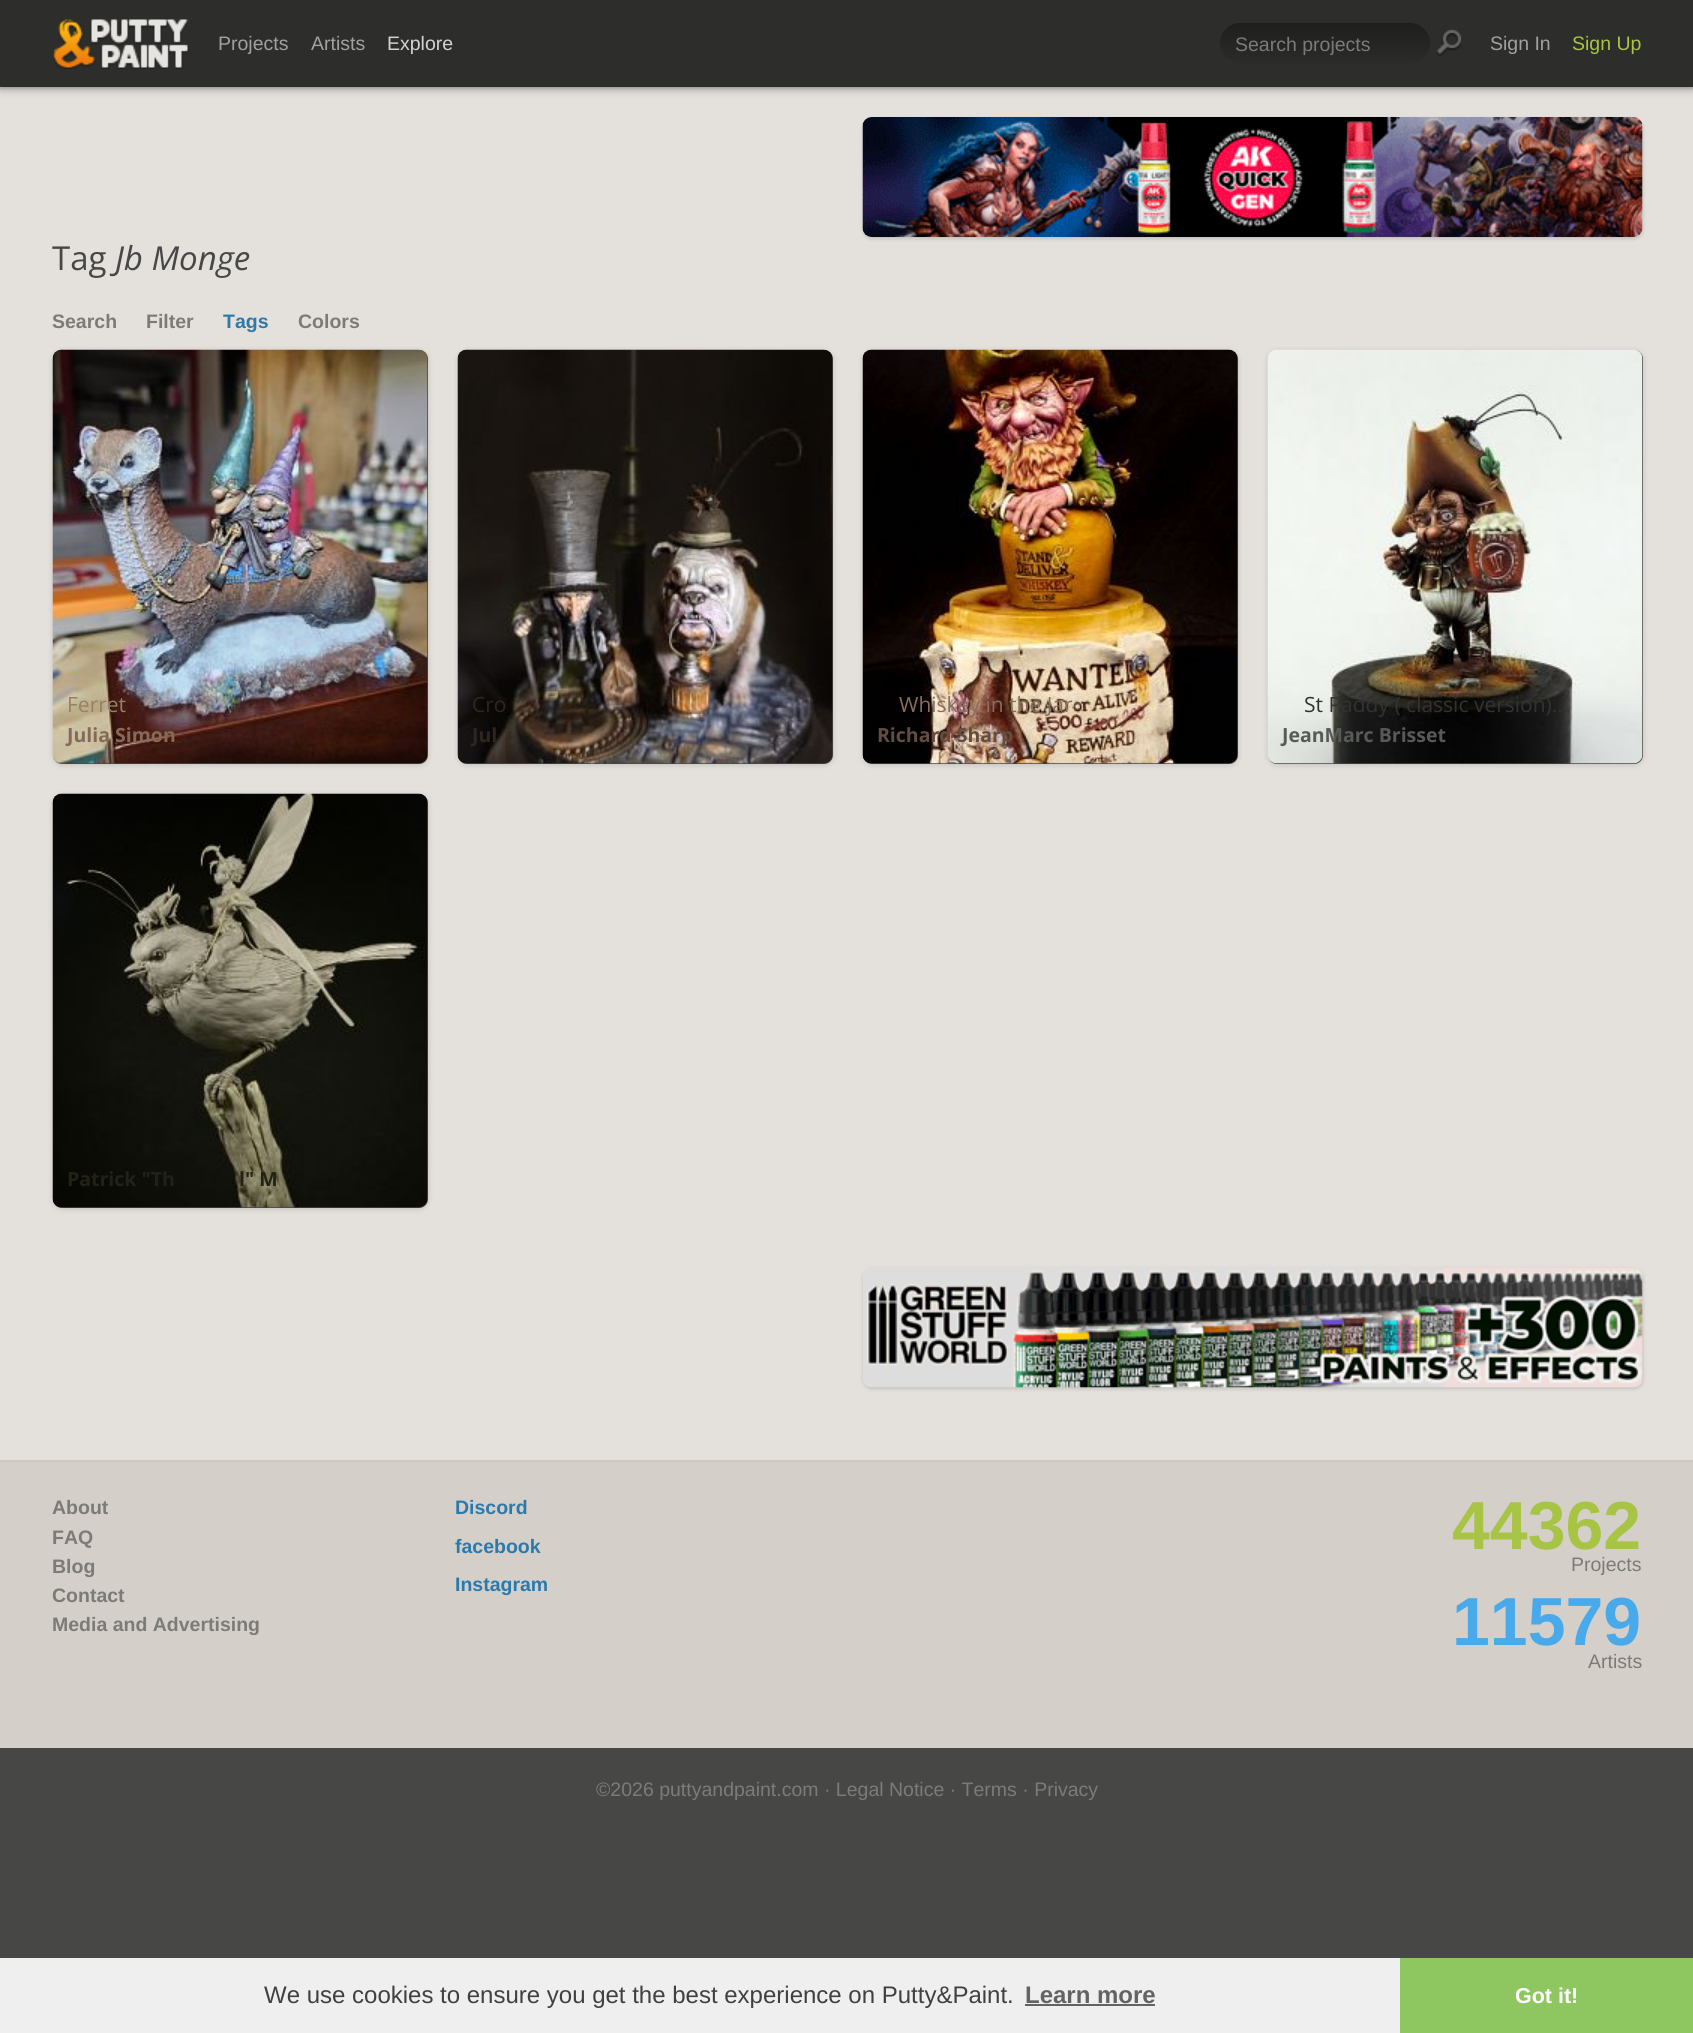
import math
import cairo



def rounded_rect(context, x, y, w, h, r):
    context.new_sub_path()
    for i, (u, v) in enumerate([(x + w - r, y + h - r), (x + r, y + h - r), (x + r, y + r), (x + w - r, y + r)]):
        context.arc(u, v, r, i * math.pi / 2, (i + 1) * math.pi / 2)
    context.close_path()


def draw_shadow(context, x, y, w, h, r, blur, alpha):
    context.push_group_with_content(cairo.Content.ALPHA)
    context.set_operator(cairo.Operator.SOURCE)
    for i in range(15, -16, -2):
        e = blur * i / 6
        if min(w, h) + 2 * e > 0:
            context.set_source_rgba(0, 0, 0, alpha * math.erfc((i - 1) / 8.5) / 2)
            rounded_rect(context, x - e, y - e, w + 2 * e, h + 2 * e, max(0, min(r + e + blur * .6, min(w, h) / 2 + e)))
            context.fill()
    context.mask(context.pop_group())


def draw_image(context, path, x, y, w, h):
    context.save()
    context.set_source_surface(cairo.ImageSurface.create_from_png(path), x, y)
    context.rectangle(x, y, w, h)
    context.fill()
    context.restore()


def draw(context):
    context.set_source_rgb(71 / 255, 71 / 255, 70 / 255)
    context.paint()
    context.set_source_rgb(228 / 255, 225 / 255, 221 / 255)
    context.rectangle(0, 87, 1693, 1373)
    context.fill()
    context.set_source_rgb(0, 0, 0)
    draw_shadow(context, 0, 2, 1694, 87, 0, 1, 0.1)
    draw_shadow(context, 0, 2, 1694, 87, 0, 4.5, 0.3)
    context.set_source_rgb(45 / 255, 45 / 255, 44 / 255)
    context.rectangle(0, 0, 1693, 87)
    context.fill()
    draw_image(context, "images/1.png", 53, 19, 136, 50)
    gradient = cairo.LinearGradient(1325, 22, 1325, 63)
    gradient.add_color_stop_rgba(0, 30 / 255, 30 / 255, 29 / 255, 1)
    gradient.add_color_stop_rgba(1, 43 / 255, 43 / 255, 42 / 255, 1)
    context.set_source(gradient)
    rounded_rect(context, 1220, 23, 210, 40, 20)
    context.fill()
    draw_image(context, "images/2.png", 1436, 29, 26, 27)
    context.set_source_rgb(0, 0, 0)
    draw_shadow(context, 863, 119, 780, 120, 9, 2, 0.15)
    draw_image(context, "images/3.png", 862, 117, 781, 120)
    draw_shadow(context, 53, 351, 375, 414, 9, 3, 0.15)
    context.set_source_rgb(71 / 255, 71 / 255, 70 / 255)
    rounded_rect(context, 53, 350, 375, 414, 9)
    context.fill()
    draw_image(context, "images/4.png", 52, 349, 376, 415)
    context.set_source_rgb(0, 0, 0)
    draw_shadow(context, 458, 351, 375, 414, 9, 3, 0.15)
    context.set_source_rgb(71 / 255, 71 / 255, 70 / 255)
    rounded_rect(context, 458, 350, 375, 414, 9)
    context.fill()
    draw_image(context, "images/5.png", 457, 349, 376, 415)
    context.set_source_rgb(0, 0, 0)
    draw_shadow(context, 863, 351, 375, 414, 9, 3, 0.15)
    context.set_source_rgb(71 / 255, 71 / 255, 70 / 255)
    rounded_rect(context, 863, 350, 375, 414, 9)
    context.fill()
    draw_image(context, "images/6.png", 862, 349, 376, 415)
    context.set_source_rgb(0, 0, 0)
    draw_shadow(context, 1268, 351, 375, 414, 9, 3, 0.15)
    context.set_source_rgb(71 / 255, 71 / 255, 70 / 255)
    rounded_rect(context, 1268, 350, 375, 414, 9)
    context.fill()
    draw_image(context, "images/7.png", 1267, 349, 376, 415)
    context.set_source_rgb(0, 0, 0)
    draw_shadow(context, 53, 795, 375, 414, 9, 3, 0.15)
    context.set_source_rgb(71 / 255, 71 / 255, 70 / 255)
    rounded_rect(context, 53, 794, 375, 414, 9)
    context.fill()
    draw_image(context, "images/8.png", 52, 793, 376, 415)
    context.set_source_rgb(0, 0, 0)
    draw_shadow(context, 863, 1269, 780, 120, 9, 2, 0.15)
    draw_image(context, "images/9.png", 863, 1267, 780, 121)
    context.set_source_rgb(212 / 255, 207 / 255, 201 / 255)
    context.rectangle(0, 1462, 1693, 286)
    context.fill()
    context.set_source_rgb(205 / 255, 200 / 255, 193 / 255)
    context.rectangle(0, 1460, 1693, 2)
    context.fill()
    context.set_source_rgb(239 / 255, 239 / 255, 239 / 255)
    context.rectangle(0, 1958, 1400, 75)
    context.fill()
    context.set_source_rgb(99 / 255, 99 / 255, 99 / 255)
    context.rectangle(1025, 2004, 130, 2)
    context.fill()
    context.set_source_rgb(142 / 255, 199 / 255, 96 / 255)
    context.rectangle(1400, 1958, 293, 75)
    context.fill()
    context.select_font_face("Liberation Sans")
    context.set_font_size(19.5)
    context.set_source_rgb(161 / 255, 161 / 255, 159 / 255)
    context.move_to(218, 50)
    context.show_text("Projects")
    context.move_to(311, 50)
    context.show_text("Artists")
    context.set_source_rgb(211 / 255, 211 / 255, 210 / 255)
    context.move_to(387, 50)
    context.show_text("Explore")
    context.set_source_rgb(123 / 255, 123 / 255, 120 / 255)
    context.move_to(1235, 51)
    context.show_text("Search projects")
    context.set_source_rgb(161 / 255, 161 / 255, 159 / 255)
    context.move_to(1490, 50)
    context.show_text("Sign In")
    context.set_source_rgb(167 / 255, 196 / 255, 68 / 255)
    context.move_to(1572, 50)
    context.show_text("Sign Up")
    context.select_font_face("Open Sans")
    context.set_font_size(33)
    context.set_source_rgb(71 / 255, 71 / 255, 70 / 255)
    context.move_to(52, 270)
    context.show_text("Tag")
    context.select_font_face("Open Sans", cairo.FontSlant.ITALIC)
    context.move_to(115, 270)
    context.show_text("Jb Monge")
    context.select_font_face("Liberation Sans", cairo.FontSlant.NORMAL, cairo.FontWeight.BOLD)
    context.set_font_size(19.5)
    context.set_source_rgb(123 / 255, 123 / 255, 120 / 255)
    context.move_to(52, 328)
    context.show_text("Search")
    context.move_to(146, 328)
    context.show_text("Filter")
    context.set_source_rgb(44 / 255, 121 / 255, 172 / 255)
    context.move_to(223, 328)
    context.show_text("Tags")
    context.set_source_rgb(123 / 255, 123 / 255, 120 / 255)
    context.move_to(298, 328)
    context.show_text("Colors")
    context.select_font_face("Open Sans")
    context.set_font_size(21)
    context.set_source_rgb(150 / 255, 129 / 255, 102 / 255)
    context.move_to(67, 712)
    context.show_text("Ferret")
    context.select_font_face("Open Sans", cairo.FontSlant.NORMAL, cairo.FontWeight.BOLD)
    context.set_font_size(19.5)
    context.set_source_rgb(134 / 255, 105 / 255, 87 / 255)
    context.move_to(67, 742)
    context.show_text("Julia Simon")
    context.select_font_face("Open Sans")
    context.set_font_size(21)
    context.set_source_rgb(47 / 255, 38 / 255, 32 / 255)
    context.move_to(472, 712)
    context.show_text("Cro")
    context.select_font_face("Open Sans", cairo.FontSlant.NORMAL, cairo.FontWeight.BOLD)
    context.set_font_size(19.5)
    context.move_to(472, 742)
    context.show_text("Jul")
    context.select_font_face("Open Sans")
    context.set_font_size(21)
    context.set_source_rgb(136 / 255, 110 / 255, 95 / 255)
    context.move_to(899, 712)
    context.show_text("Whiskey in the Jar")
    context.select_font_face("Open Sans", cairo.FontSlant.NORMAL, cairo.FontWeight.BOLD)
    context.set_font_size(19.5)
    context.set_source_rgb(98 / 255, 77 / 255, 66 / 255)
    context.move_to(877, 742)
    context.show_text("Richard Sharp")
    context.select_font_face("Open Sans")
    context.set_font_size(21)
    context.set_source_rgb(50 / 255, 51 / 255, 48 / 255)
    context.move_to(1304, 712)
    context.show_text("St Paddy ( classic version)…")
    context.select_font_face("Open Sans", cairo.FontSlant.NORMAL, cairo.FontWeight.BOLD)
    context.set_font_size(19.5)
    context.set_source_rgb(88 / 255, 90 / 255, 88 / 255)
    context.move_to(1282, 742)
    context.show_text("JeanMarc Brisset")
    context.set_source_rgb(33 / 255, 33 / 255, 22 / 255)
    context.move_to(67, 1186)
    context.show_text("Patrick \"Th")
    context.move_to(239, 1186)
    context.show_text("l\" M")
    context.select_font_face("Liberation Sans", cairo.FontSlant.NORMAL, cairo.FontWeight.BOLD)
    context.set_source_rgb(123 / 255, 123 / 255, 120 / 255)
    context.move_to(52, 1514)
    context.show_text("About")
    context.move_to(52, 1544)
    context.show_text("FAQ")
    context.move_to(52, 1573)
    context.show_text("Blog")
    context.move_to(52, 1602)
    context.show_text("Contact")
    context.move_to(52, 1631)
    context.show_text("Media and Advertising")
    context.set_source_rgb(44 / 255, 121 / 255, 172 / 255)
    context.move_to(455, 1514)
    context.show_text("Discord")
    context.move_to(455, 1553)
    context.show_text("facebook")
    context.move_to(455, 1591)
    context.show_text("Instagram")
    context.set_font_size(68)
    context.set_source_rgb(167 / 255, 196 / 255, 68 / 255)
    context.move_to(1452, 1549)
    context.show_text("44362")
    context.select_font_face("Liberation Sans")
    context.set_font_size(19.5)
    context.set_source_rgb(123 / 255, 123 / 255, 120 / 255)
    context.move_to(1571, 1571)
    context.show_text("Projects")
    context.select_font_face("Liberation Sans", cairo.FontSlant.NORMAL, cairo.FontWeight.BOLD)
    context.set_font_size(68)
    context.set_source_rgb(72 / 255, 170 / 255, 234 / 255)
    context.move_to(1452, 1645)
    context.show_text("11579")
    context.select_font_face("Liberation Sans")
    context.set_font_size(19.5)
    context.set_source_rgb(123 / 255, 123 / 255, 120 / 255)
    context.move_to(1588, 1668)
    context.show_text("Artists")
    context.move_to(596, 1796)
    context.show_text("©2026 puttyandpaint.com · Legal Notice · Terms · Privacy")
    context.set_font_size(24)
    context.set_source_rgb(64 / 255, 64 / 255, 64 / 255)
    context.move_to(264, 2003)
    context.show_text("We use cookies to ensure you get the best experience on Putty&Paint.")
    context.select_font_face("Liberation Sans", cairo.FontSlant.NORMAL, cairo.FontWeight.BOLD)
    context.set_source_rgb(99 / 255, 99 / 255, 99 / 255)
    context.move_to(1025, 2003)
    context.show_text("Learn more")
    context.set_font_size(21.5)
    context.set_source_rgb(1, 1, 1)
    context.move_to(1515, 2003)
    context.show_text("Got it!")


surface = cairo.ImageSurface(cairo.Format.RGB24, 1693, 2033)
context = cairo.Context(surface)
options = cairo.FontOptions()
options.set_hint_metrics(cairo.HintMetrics.OFF)
options.set_hint_style(cairo.HintStyle.NONE)
context.set_font_options(options)
context.set_miter_limit(4)
draw(context)
surface.write_to_png("out.png")
